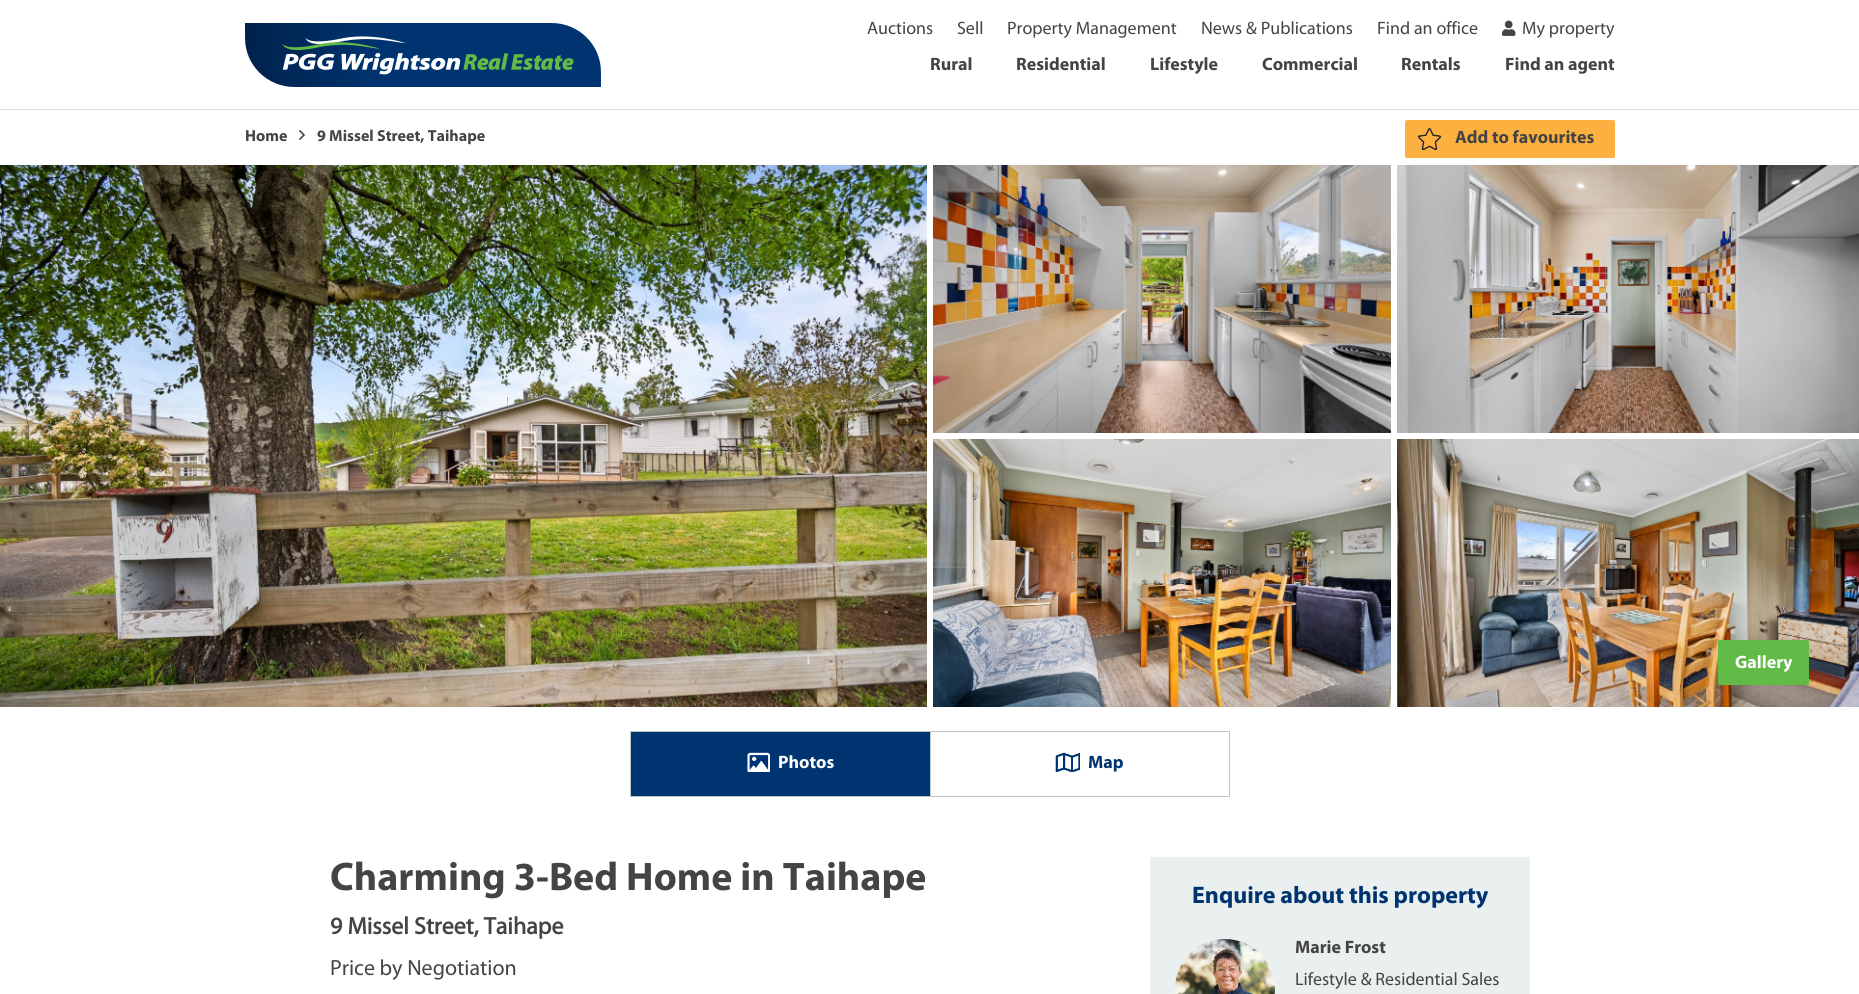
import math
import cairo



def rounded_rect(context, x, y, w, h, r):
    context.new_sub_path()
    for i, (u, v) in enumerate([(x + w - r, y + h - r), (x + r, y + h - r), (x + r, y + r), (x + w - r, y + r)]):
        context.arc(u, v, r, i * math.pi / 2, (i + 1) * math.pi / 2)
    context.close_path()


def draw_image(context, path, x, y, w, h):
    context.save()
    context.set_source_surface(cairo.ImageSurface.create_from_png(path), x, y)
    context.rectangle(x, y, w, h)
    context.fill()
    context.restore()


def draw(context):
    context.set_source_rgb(1, 1, 1)
    context.paint()
    context.set_source_rgb(214 / 255, 223 / 255, 225 / 255)
    context.rectangle(0, 109, 1859, 1)
    context.fill()
    draw_image(context, "images/1.png", 245, 23, 356, 64)
    draw_image(context, "images/2.png", 1502, 20, 14, 16)
    draw_image(context, "images/3.png", 299, 130, 6, 10)
    context.set_source_rgb(251 / 255, 176 / 255, 64 / 255)
    rounded_rect(context, 1405, 120, 210, 38, 2)
    context.fill()
    draw_image(context, "images/4.png", 1417, 128, 25, 22)
    draw_image(context, "images/5.png", 0, 165, 927, 542)
    draw_image(context, "images/6.png", 933, 165, 458, 268)
    draw_image(context, "images/7.png", 1397, 165, 462, 268)
    draw_image(context, "images/8.png", 933, 439, 458, 268)
    draw_image(context, "images/9.png", 1397, 439, 462, 268)
    context.set_source_rgb(98 / 255, 187 / 255, 70 / 255)
    rounded_rect(context, 1718.5, 640.5, 90, 44, 1.5)
    context.fill_preserve()
    context.set_line_width(1)
    context.stroke()
    context.set_source_rgb(185 / 255, 201 / 255, 203 / 255)
    context.rectangle(630, 731, 300, 1)
    context.fill()
    context.rectangle(630, 796, 300, 1)
    context.fill()
    context.rectangle(630, 731, 1, 66)
    context.fill()
    context.set_source_rgb(0, 52 / 255, 113 / 255)
    context.rectangle(631, 732, 299, 64)
    context.fill()
    draw_image(context, "images/10.png", 747, 752, 23, 20)
    context.rectangle(930.5, 731.5, 299, 65)
    context.set_source_rgb(185 / 255, 201 / 255, 203 / 255)
    context.stroke()
    draw_image(context, "images/11.png", 1055, 752, 25, 20)
    context.set_source_rgb(234 / 255, 239 / 255, 240 / 255)
    context.rectangle(1150, 857, 380, 137)
    context.fill()
    draw_image(context, "images/12.png", 1175, 939, 100, 55)
    context.select_font_face("Myriad")
    context.set_font_size(18)
    context.set_source_rgb(68 / 255, 68 / 255, 68 / 255)
    context.move_to(867, 34)
    context.show_text("Auctions")
    context.move_to(957, 34)
    context.show_text("Sell")
    context.move_to(1007, 34)
    context.show_text("Property Management")
    context.move_to(1201, 34)
    context.show_text("News & Publications")
    context.move_to(1377, 34)
    context.show_text("Find an office")
    context.move_to(1522, 34)
    context.show_text("My property")
    context.select_font_face("Myriad", cairo.FontSlant.NORMAL, cairo.FontWeight.BOLD)
    context.move_to(930, 70)
    context.show_text("Rural")
    context.move_to(1016, 70)
    context.show_text("Residential")
    context.move_to(1150, 70)
    context.show_text("Lifestyle")
    context.move_to(1262, 70)
    context.show_text("Commercial")
    context.move_to(1401, 70)
    context.show_text("Rentals")
    context.move_to(1505, 70)
    context.show_text("Find an agent")
    context.set_font_size(16)
    context.move_to(245, 141)
    context.show_text("Home")
    context.move_to(317, 141)
    context.show_text("9 Missel Street, Taihape")
    context.set_font_size(18)
    context.move_to(1455, 143)
    context.show_text("Add to favourites")
    context.select_font_face("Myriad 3", cairo.FontSlant.NORMAL, cairo.FontWeight.BOLD)
    context.set_source_rgb(1, 1, 1)
    context.move_to(1735, 668)
    context.show_text("Gallery")
    context.select_font_face("Myriad", cairo.FontSlant.NORMAL, cairo.FontWeight.BOLD)
    context.move_to(778, 768)
    context.show_text("Photos")
    context.set_source_rgb(0, 52 / 255, 113 / 255)
    context.move_to(1088, 768)
    context.show_text("Map")
    context.set_font_size(40)
    context.set_source_rgb(68 / 255, 68 / 255, 68 / 255)
    context.move_to(330, 890)
    context.show_text("Charming 3-Bed Home in Taihape")
    context.select_font_face("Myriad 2", cairo.FontSlant.NORMAL, cairo.FontWeight.BOLD)
    context.set_font_size(24)
    context.move_to(330, 934)
    context.show_text("9 Missel Street, Taihape")
    context.select_font_face("Myriad")
    context.set_font_size(22)
    context.move_to(330, 975)
    context.show_text("Price by Negotiation")
    context.select_font_face("Myriad", cairo.FontSlant.NORMAL, cairo.FontWeight.BOLD)
    context.set_font_size(24)
    context.set_source_rgb(0, 52 / 255, 113 / 255)
    context.move_to(1192, 903)
    context.show_text("Enquire about this property")
    context.set_font_size(18)
    context.set_source_rgb(68 / 255, 68 / 255, 68 / 255)
    context.move_to(1295, 953)
    context.show_text("Marie Frost")
    context.select_font_face("Myriad")
    context.move_to(1295, 985)
    context.show_text("Lifestyle & Residential Sales")


surface = cairo.ImageSurface(cairo.Format.RGB24, 1859, 994)
context = cairo.Context(surface)
options = cairo.FontOptions()
options.set_hint_metrics(cairo.HintMetrics.OFF)
options.set_hint_style(cairo.HintStyle.NONE)
context.set_font_options(options)
context.set_miter_limit(4)
draw(context)
surface.write_to_png("out.png")
